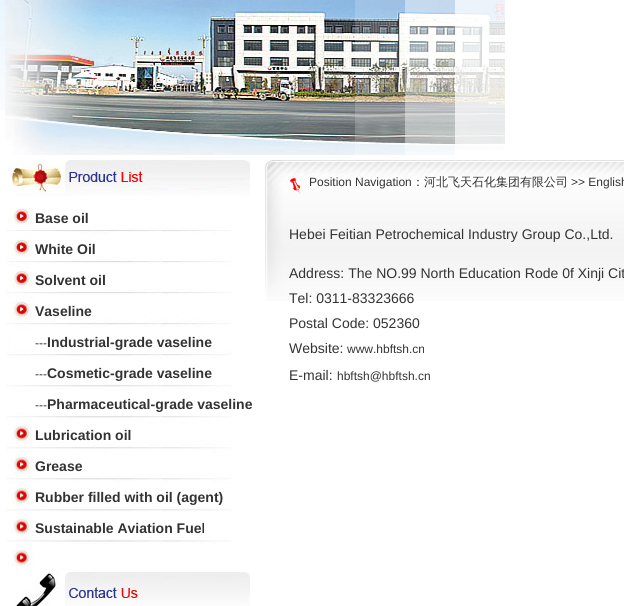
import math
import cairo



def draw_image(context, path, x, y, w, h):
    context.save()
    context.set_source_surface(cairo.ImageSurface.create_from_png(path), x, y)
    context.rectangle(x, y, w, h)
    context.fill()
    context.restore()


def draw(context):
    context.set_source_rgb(1, 1, 1)
    context.paint()
    draw_image(context, "images/1.png", 0, 0, 5, 110)
    draw_image(context, "images/5.png", 12, 0, 493, 150)
    draw_image(context, "images/2.png", 5, 0, 450, 155)
    draw_image(context, "images/3.png", 5, 0, 400, 155)
    draw_image(context, "images/4.png", 5, 0, 350, 155)
    draw_image(context, "images/6.png", 86, 20, 219, 81)
    draw_image(context, "images/7.png", 8, 159, 242, 37)
    draw_image(context, "images/8.png", 6, 208, 226, 358)
    draw_image(context, "images/9.png", 15, 567, 235, 39)
    draw_image(context, "images/10.png", 264, 160, 360, 40)
    draw_image(context, "images/11.png", 265, 200, 359, 101)
    context.select_font_face("Liberation Sans", cairo.FontSlant.NORMAL, cairo.FontWeight.BOLD)
    context.set_font_size(14)
    context.set_source_rgb(51 / 255, 51 / 255, 51 / 255)
    context.move_to(35, 223)
    context.show_text("Base oil")
    context.move_to(35, 254)
    context.show_text("White Oil")
    context.move_to(35, 285)
    context.show_text("Solvent oil")
    context.move_to(35, 316)
    context.show_text("Vaseline")
    context.select_font_face("Liberation Sans")
    context.set_font_size(12)
    context.move_to(35, 347)
    context.show_text("---")
    context.select_font_face("Liberation Sans", cairo.FontSlant.NORMAL, cairo.FontWeight.BOLD)
    context.set_font_size(14)
    context.move_to(47, 347)
    context.show_text("Industrial-grade vaseline")
    context.select_font_face("Liberation Sans")
    context.set_font_size(12)
    context.move_to(35, 378)
    context.show_text("---")
    context.select_font_face("Liberation Sans", cairo.FontSlant.NORMAL, cairo.FontWeight.BOLD)
    context.set_font_size(14)
    context.move_to(47, 378)
    context.show_text("Cosmetic-grade vaseline")
    context.select_font_face("Liberation Sans")
    context.set_font_size(12)
    context.move_to(35, 409)
    context.show_text("---")
    context.select_font_face("Liberation Sans", cairo.FontSlant.NORMAL, cairo.FontWeight.BOLD)
    context.set_font_size(14)
    context.move_to(47, 409)
    context.show_text("Pharmaceutical-grade vaseline")
    context.move_to(35, 440)
    context.show_text("Lubrication oil")
    context.move_to(35, 471)
    context.show_text("Grease")
    context.move_to(35, 502)
    context.show_text("Rubber filled with oil (agent)")
    context.move_to(35, 533)
    context.show_text("Sustainable Aviation Fuel")
    context.select_font_face("Liberation Sans")
    context.set_font_size(12)
    context.move_to(309, 186)
    context.show_text("Position Navigation")
    context.select_font_face("WenQuanYi Zen Hei Medium")
    context.move_to(412, 186)
    context.show_text("：河北飞天石化集团有限公司")
    context.select_font_face("Liberation Sans")
    context.move_to(571, 186)
    context.show_text(">> English")
    context.set_font_size(14)
    context.move_to(289, 239)
    context.show_text("Hebei Feitian Petrochemical Industry Group Co.,Ltd.")
    context.move_to(289, 278)
    context.show_text("Address: The NO.99 North Education Rode 0f Xinji Cit")
    context.move_to(289, 303)
    context.show_text("Tel: 0311-83323666")
    context.move_to(289, 328)
    context.show_text("Postal Code: 052360")
    context.move_to(289, 353)
    context.show_text("Website:")
    context.set_font_size(12)
    context.move_to(347, 353)
    context.show_text("www.hbftsh.cn")
    context.set_font_size(14)
    context.move_to(289, 380)
    context.show_text("E-mail:")
    context.set_font_size(12)
    context.move_to(337, 380)
    context.show_text("hbftsh@hbftsh.cn")


surface = cairo.ImageSurface(cairo.Format.RGB24, 624, 606)
context = cairo.Context(surface)
options = cairo.FontOptions()
options.set_hint_metrics(cairo.HintMetrics.OFF)
options.set_hint_style(cairo.HintStyle.NONE)
context.set_font_options(options)
context.set_miter_limit(4)
draw(context)
surface.write_to_png("out.png")
